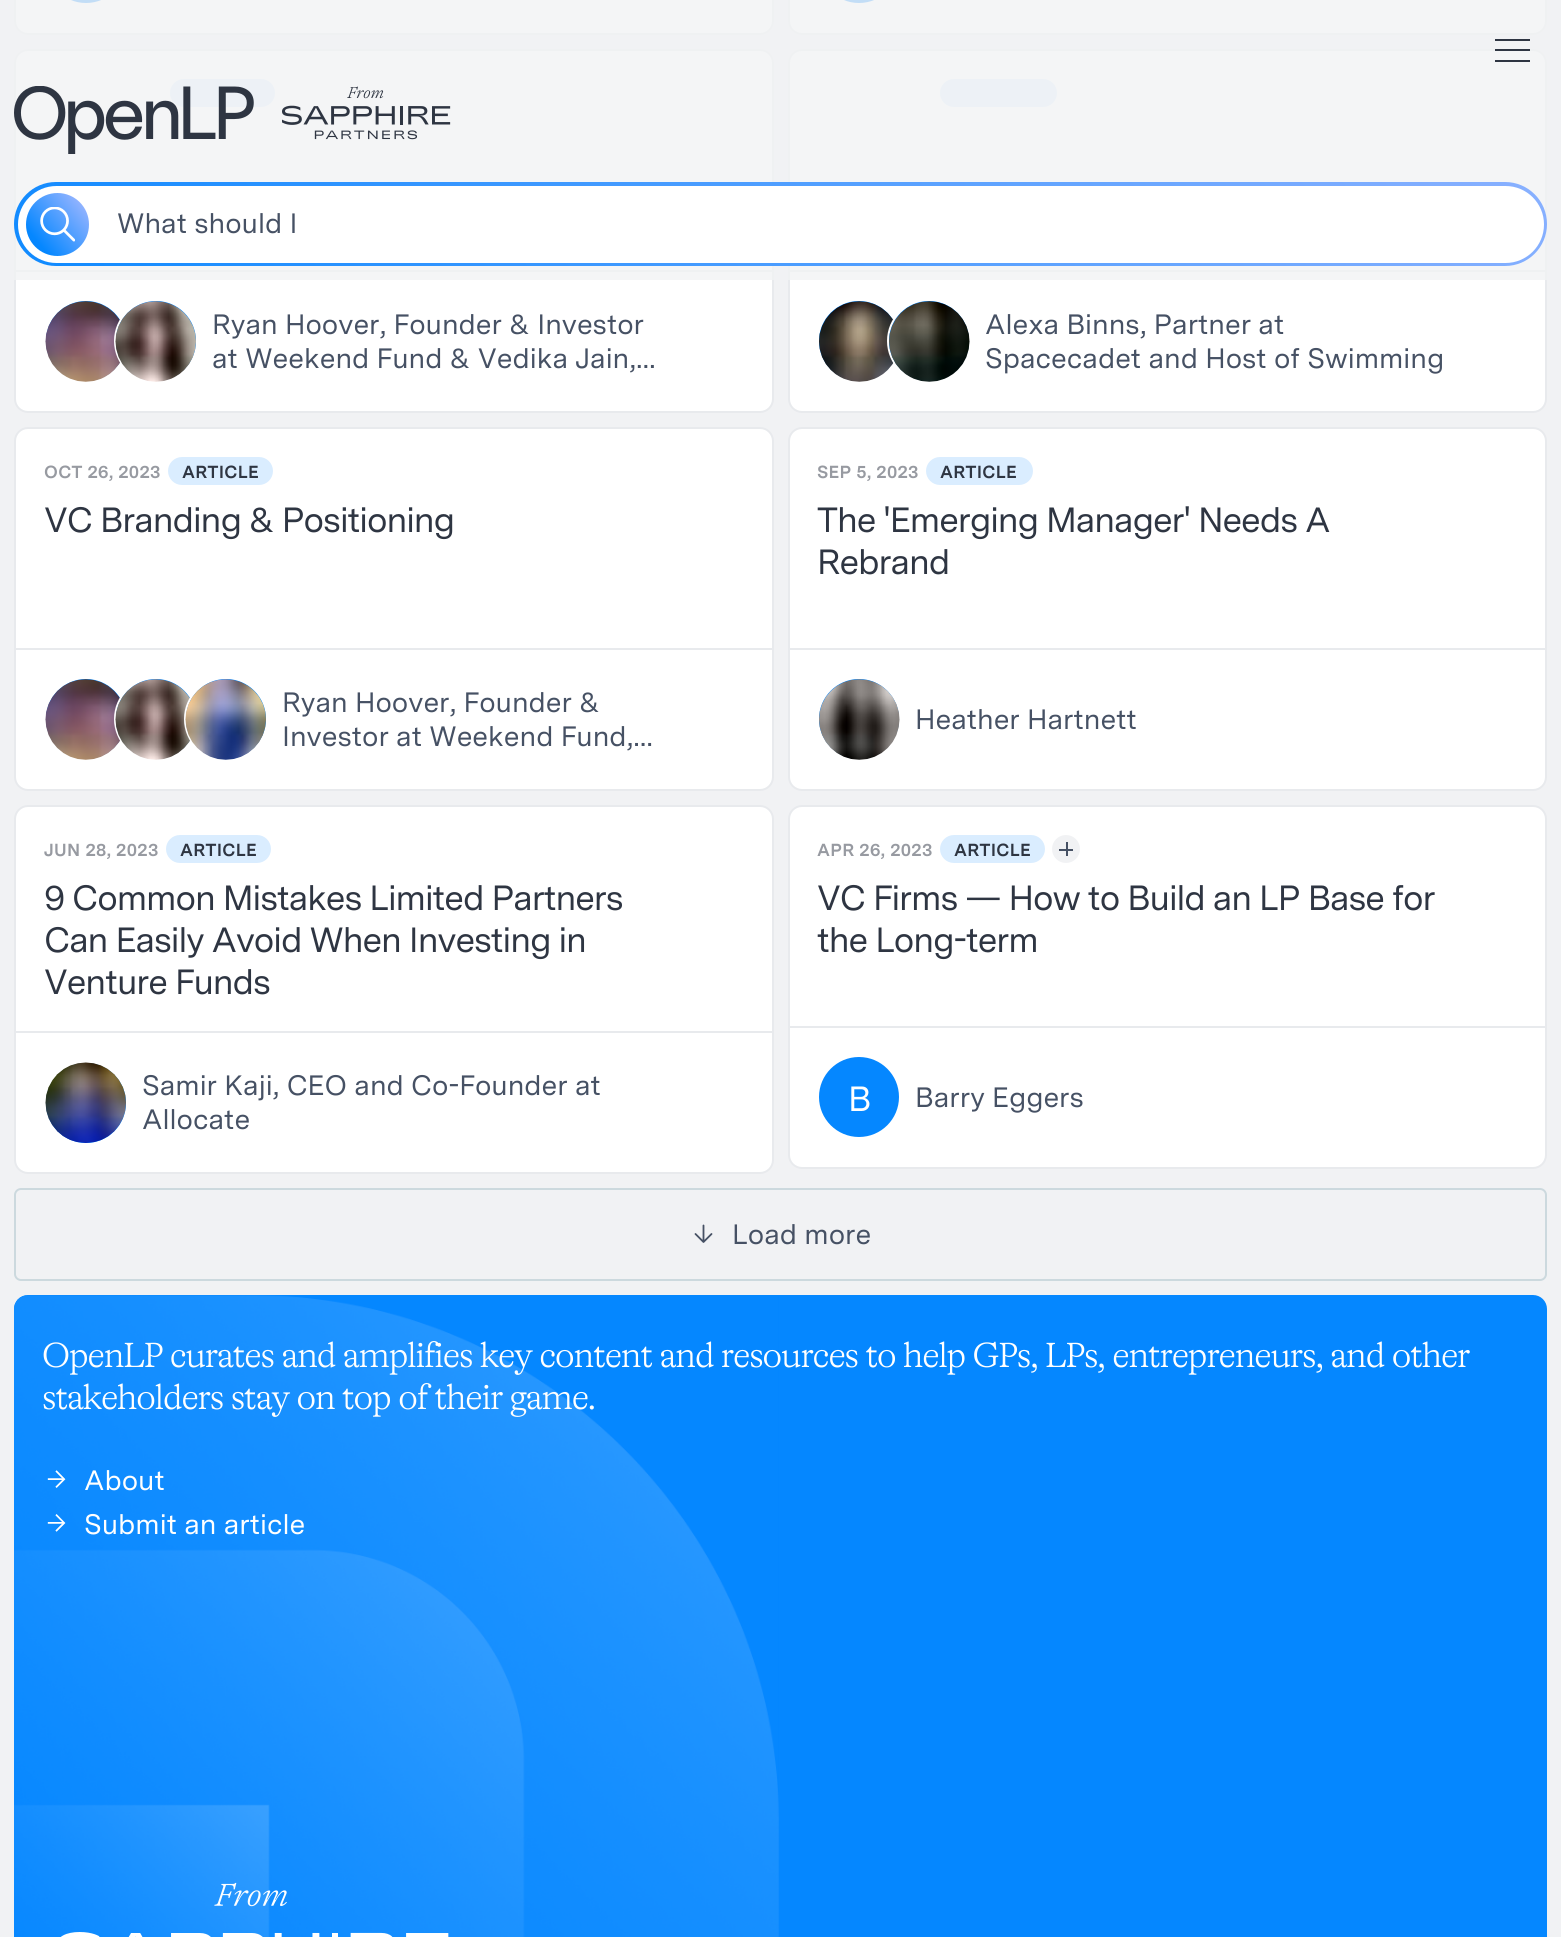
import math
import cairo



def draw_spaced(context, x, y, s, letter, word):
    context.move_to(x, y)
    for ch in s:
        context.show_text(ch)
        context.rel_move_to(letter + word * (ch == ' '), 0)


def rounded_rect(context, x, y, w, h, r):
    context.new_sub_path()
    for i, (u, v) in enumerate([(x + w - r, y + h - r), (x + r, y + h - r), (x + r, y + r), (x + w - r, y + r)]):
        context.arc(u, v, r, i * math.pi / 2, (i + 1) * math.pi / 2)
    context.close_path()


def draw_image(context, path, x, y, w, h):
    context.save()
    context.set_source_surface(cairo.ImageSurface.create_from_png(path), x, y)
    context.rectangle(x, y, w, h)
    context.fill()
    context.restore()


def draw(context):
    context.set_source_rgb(241 / 255, 242 / 255, 244 / 255)
    context.paint()
    context.set_source_rgb(1, 1, 1)
    rounded_rect(context, 15, -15, 758, 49, 13)
    context.fill_preserve()
    context.set_source_rgb(232 / 255, 234 / 255, 237 / 255)
    context.stroke()
    context.set_source_rgb(5 / 255, 135 / 255, 1)
    rounded_rect(context, 45, -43, 82, 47, 41)
    context.fill_preserve()
    context.set_source_rgb(1, 1, 1)
    context.stroke()
    rounded_rect(context, 789, -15, 757, 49, 13)
    context.fill_preserve()
    context.set_source_rgb(232 / 255, 234 / 255, 237 / 255)
    context.stroke()
    context.set_source_rgb(5 / 255, 135 / 255, 1)
    rounded_rect(context, 818, -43, 82, 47, 41)
    context.fill_preserve()
    context.set_source_rgb(1, 1, 1)
    context.stroke()
    rounded_rect(context, 15, 50, 758, 362, 13)
    context.fill_preserve()
    context.set_source_rgb(232 / 255, 234 / 255, 237 / 255)
    context.stroke()
    context.set_source_rgb(218 / 255, 237 / 255, 1)
    rounded_rect(context, 170, 79, 105, 28, 14)
    context.fill()
    context.set_source_rgb(232 / 255, 234 / 255, 237 / 255)
    context.rectangle(16, 270, 756, 2)
    context.fill()
    context.set_source_rgb(1, 1, 1)
    rounded_rect(context, 789, 50, 757, 362, 13)
    context.fill_preserve()
    context.set_source_rgb(232 / 255, 234 / 255, 237 / 255)
    context.stroke()
    context.set_source_rgb(218 / 255, 237 / 255, 1)
    rounded_rect(context, 940, 79, 117, 28, 14)
    context.fill()
    context.set_source_rgb(232 / 255, 234 / 255, 237 / 255)
    context.rectangle(789, 270, 756, 2)
    context.fill()
    context.set_source_rgba(241 / 255, 242 / 255, 244 / 255, 0.8)
    context.rectangle(14, 0, 1533, 280)
    context.fill()
    context.set_source_rgb(46 / 255, 53 / 255, 66 / 255)
    context.rectangle(1495, 49, 35, 2)
    context.fill()
    context.rectangle(1495, 39, 35, 2)
    context.fill()
    context.rectangle(1495, 60, 35, 2)
    context.fill()
    draw_image(context, "images/1.png", 14, 86, 240, 68)
    draw_image(context, "images/2.png", 282, 86, 169, 54)
    gradient = cairo.LinearGradient(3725, -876, 902, 1492)
    gradient.add_color_stop_rgba(0, 130 / 255, 91 / 255, 1, 1)
    gradient.add_color_stop_rgba(0.5, 187 / 255, 192 / 255, 1, 1)
    gradient.add_color_stop_rgba(1, 5 / 255, 135 / 255, 1, 1)
    context.set_source(gradient)
    rounded_rect(context, 14, 182, 1533, 84, 42)
    context.fill()
    context.set_source_rgb(1, 1, 1)
    rounded_rect(context, 18, 186, 1526, 77, 38.5)
    context.fill()
    gradient = cairo.LinearGradient(120, 171, -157, 404)
    gradient.add_color_stop_rgba(0, 130 / 255, 99 / 255, 1, 1)
    gradient.add_color_stop_rgba(0.09, 187 / 255, 192 / 255, 1, 1)
    gradient.add_color_stop_rgba(0.3, 5 / 255, 135 / 255, 1, 1)
    gradient.add_color_stop_rgba(1, 3 / 255, 81 / 255, 153 / 255, 1)
    context.set_source(gradient)
    context.arc(57.5, 224.5, 31.5, 0, 2 * math.pi)
    context.fill()
    draw_image(context, "images/3.png", 40, 207, 35, 35)
    context.set_source_rgb(5 / 255, 135 / 255, 1)
    context.arc(86, 341, 41, 0, 2 * math.pi)
    context.fill_preserve()
    context.set_source_rgb(1, 1, 1)
    context.stroke()
    draw_image(context, "images/4.png", 45, 301, 76, 81)
    context.set_source_rgb(5 / 255, 135 / 255, 1)
    context.arc(156, 341, 41, 0, 2 * math.pi)
    context.fill_preserve()
    context.set_source_rgb(1, 1, 1)
    context.stroke()
    draw_image(context, "images/5.png", 115, 301, 81, 81)
    context.set_source_rgb(5 / 255, 135 / 255, 1)
    context.arc(859, 341, 41, 0, 2 * math.pi)
    context.fill_preserve()
    context.set_source_rgb(1, 1, 1)
    context.stroke()
    draw_image(context, "images/6.png", 819, 301, 75, 81)
    context.set_source_rgb(5 / 255, 135 / 255, 1)
    context.arc(929, 341, 41, 0, 2 * math.pi)
    context.fill_preserve()
    context.set_source_rgb(1, 1, 1)
    context.stroke()
    draw_image(context, "images/7.png", 889, 301, 81, 81)
    rounded_rect(context, 15, 428, 758, 362, 13)
    context.fill_preserve()
    context.set_source_rgb(232 / 255, 234 / 255, 237 / 255)
    context.stroke()
    context.set_source_rgb(218 / 255, 237 / 255, 1)
    rounded_rect(context, 168, 457, 105, 28, 14)
    context.fill()
    context.set_source_rgb(232 / 255, 234 / 255, 237 / 255)
    context.rectangle(16, 648, 756, 2)
    context.fill()
    context.set_source_rgb(5 / 255, 135 / 255, 1)
    context.arc(86, 719, 41, 0, 2 * math.pi)
    context.fill_preserve()
    context.set_source_rgb(1, 1, 1)
    context.stroke()
    draw_image(context, "images/8.png", 45, 679, 76, 81)
    context.set_source_rgb(5 / 255, 135 / 255, 1)
    context.arc(156, 719, 41, 0, 2 * math.pi)
    context.fill_preserve()
    context.set_source_rgb(1, 1, 1)
    context.stroke()
    draw_image(context, "images/9.png", 115, 679, 76, 81)
    context.set_source_rgb(5 / 255, 135 / 255, 1)
    context.arc(226, 719, 41, 0, 2 * math.pi)
    context.fill_preserve()
    context.set_source_rgb(1, 1, 1)
    context.stroke()
    draw_image(context, "images/10.png", 185, 679, 81, 81)
    rounded_rect(context, 789, 428, 757, 362, 13)
    context.fill_preserve()
    context.set_source_rgb(232 / 255, 234 / 255, 237 / 255)
    context.stroke()
    context.set_source_rgb(218 / 255, 237 / 255, 1)
    rounded_rect(context, 926, 457, 107, 28, 14)
    context.fill()
    context.set_source_rgb(232 / 255, 234 / 255, 237 / 255)
    context.rectangle(789, 648, 756, 2)
    context.fill()
    context.set_source_rgb(5 / 255, 135 / 255, 1)
    context.arc(859, 719, 41, 0, 2 * math.pi)
    context.fill_preserve()
    context.set_source_rgb(1, 1, 1)
    context.stroke()
    draw_image(context, "images/11.png", 819, 679, 81, 81)
    rounded_rect(context, 15, 806, 758, 367, 13)
    context.fill_preserve()
    context.set_source_rgb(232 / 255, 234 / 255, 237 / 255)
    context.stroke()
    context.set_source_rgb(218 / 255, 237 / 255, 1)
    rounded_rect(context, 166, 835, 105, 28, 14)
    context.fill()
    context.set_source_rgb(232 / 255, 234 / 255, 237 / 255)
    context.rectangle(16, 1031, 756, 2)
    context.fill()
    context.set_source_rgb(5 / 255, 135 / 255, 1)
    context.arc(86, 1103, 41, 0, 2 * math.pi)
    context.fill_preserve()
    context.set_source_rgb(1, 1, 1)
    context.stroke()
    draw_image(context, "images/12.png", 45, 1062, 81, 81)
    rounded_rect(context, 789, 806, 757, 362, 13)
    context.fill_preserve()
    context.set_source_rgb(232 / 255, 234 / 255, 237 / 255)
    context.stroke()
    context.set_source_rgb(218 / 255, 237 / 255, 1)
    rounded_rect(context, 940, 835, 105, 28, 14)
    context.fill()
    context.set_source_rgb(241 / 255, 242 / 255, 244 / 255)
    context.arc(1066, 849, 14, 0, 2 * math.pi)
    context.fill()
    context.set_source_rgb(70 / 255, 81 / 255, 100 / 255)
    context.rectangle(1059, 849, 14, 2)
    context.fill()
    context.rectangle(1066, 842, 2, 14)
    context.fill()
    context.set_source_rgb(232 / 255, 234 / 255, 237 / 255)
    context.rectangle(789, 1026, 756, 2)
    context.fill()
    context.set_source_rgb(5 / 255, 135 / 255, 1)
    context.arc(859, 1097, 41, 0, 2 * math.pi)
    context.fill_preserve()
    context.set_source_rgb(1, 1, 1)
    context.stroke()
    rounded_rect(context, 15, 1189, 1531, 91, 6)
    context.set_source_rgb(204 / 255, 217 / 255, 222 / 255)
    context.stroke()
    context.new_path()
    context.move_to(703.5, 1225.5)
    context.line_to(703.5, 1242)
    context.move_to(711.5, 1234)
    context.line_to(703.5, 1242)
    context.line_to(695.5, 1234)
    context.set_source_rgb(70 / 255, 81 / 255, 100 / 255)
    context.set_line_width(1.8)
    context.set_line_cap(cairo.LineCap.ROUND)
    context.set_line_join(cairo.LineJoin.ROUND)
    context.stroke()
    context.set_source_rgb(5 / 255, 135 / 255, 1)
    rounded_rect(context, 14, 1295, 1533, 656, 14)
    context.fill()
    draw_image(context, "images/13.png", 14, 1295, 765, 642)
    draw_image(context, "images/14.png", 47, 1470, 19, 18)
    draw_image(context, "images/15.png", 47, 1514, 19, 18)
    draw_image(context, "images/16.png", 60, 1882, 389, 55)
    context.select_font_face("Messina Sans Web")
    context.set_font_size(28)
    context.set_source_rgb(70 / 255, 81 / 255, 100 / 255)
    context.move_to(117, 233)
    context.show_text("What should I")
    context.move_to(212, 334)
    context.show_text("Ryan Hoover, Founder & Investor")
    context.move_to(212, 368)
    context.show_text("at Weekend Fund & Vedika Jain,…")
    context.move_to(985, 334)
    context.show_text("Alexa Binns, Partner at")
    context.move_to(985, 368)
    context.show_text("Spacecadet and Host of Swimming")
    context.select_font_face("Messina Sans Web", cairo.FontSlant.NORMAL, cairo.FontWeight.BOLD)
    context.set_font_size(17.5)
    context.set_source_rgb(151 / 255, 154 / 255, 161 / 255)
    draw_spaced(context, 44, 478, "OCT 26, 2023", 0.3, 0)
    context.set_source_rgb(46 / 255, 53 / 255, 66 / 255)
    draw_spaced(context, 182, 478, "ARTICLE", 0.3, 0)
    context.select_font_face("Messina Sans Web")
    context.set_font_size(35)
    draw_spaced(context, 44, 532, "VC Branding & Positioning", -1.05, 0)
    context.set_font_size(28)
    context.set_source_rgb(70 / 255, 81 / 255, 100 / 255)
    context.move_to(282, 712)
    context.show_text("Ryan Hoover, Founder &")
    context.move_to(282, 746)
    context.show_text("Investor at Weekend Fund,…")
    context.select_font_face("Messina Sans Web", cairo.FontSlant.NORMAL, cairo.FontWeight.BOLD)
    context.set_font_size(17.5)
    context.set_source_rgb(151 / 255, 154 / 255, 161 / 255)
    draw_spaced(context, 817, 478, "SEP 5, 2023", 0.3, 0)
    context.set_source_rgb(46 / 255, 53 / 255, 66 / 255)
    draw_spaced(context, 940, 478, "ARTICLE", 0.3, 0)
    context.select_font_face("Messina Sans Web")
    context.set_font_size(35)
    draw_spaced(context, 817, 532, "The 'Emerging Manager' Needs A", -1.05, 0)
    draw_spaced(context, 817, 574, "Rebrand", -1.05, 0)
    context.set_font_size(28)
    context.set_source_rgb(70 / 255, 81 / 255, 100 / 255)
    context.move_to(915, 729)
    context.show_text("Heather Hartnett")
    context.select_font_face("Messina Sans Web", cairo.FontSlant.NORMAL, cairo.FontWeight.BOLD)
    context.set_font_size(17.5)
    context.set_source_rgb(151 / 255, 154 / 255, 161 / 255)
    draw_spaced(context, 44, 856, "JUN 28, 2023", 0.3, 0)
    context.set_source_rgb(46 / 255, 53 / 255, 66 / 255)
    draw_spaced(context, 180, 856, "ARTICLE", 0.3, 0)
    context.select_font_face("Messina Sans Web")
    context.set_font_size(35)
    draw_spaced(context, 44, 910, "9 Common Mistakes Limited Partners", -1.05, 0)
    draw_spaced(context, 44, 952, "Can Easily Avoid When Investing in", -1.05, 0)
    draw_spaced(context, 44, 994, "Venture Funds", -1.05, 0)
    context.set_font_size(28)
    context.set_source_rgb(70 / 255, 81 / 255, 100 / 255)
    context.move_to(142, 1095)
    context.show_text("Samir Kaji, CEO and Co-Founder at")
    context.move_to(142, 1129)
    context.show_text("Allocate")
    context.select_font_face("Messina Sans Web", cairo.FontSlant.NORMAL, cairo.FontWeight.BOLD)
    context.set_font_size(17.5)
    context.set_source_rgb(151 / 255, 154 / 255, 161 / 255)
    draw_spaced(context, 817, 856, "APR 26, 2023", 0.3, 0)
    context.set_source_rgb(46 / 255, 53 / 255, 66 / 255)
    draw_spaced(context, 954, 856, "ARTICLE", 0.3, 0)
    context.select_font_face("Messina Sans Web")
    context.set_font_size(35)
    draw_spaced(context, 817, 910, "VC Firms — How to Build an LP Base for", -1.05, 0)
    draw_spaced(context, 817, 952, "the Long-term", -1.05, 0)
    context.set_source_rgb(1, 1, 1)
    context.move_to(848, 1111)
    context.show_text("B")
    context.set_font_size(28)
    context.set_source_rgb(70 / 255, 81 / 255, 100 / 255)
    context.move_to(915, 1107)
    context.show_text("Barry Eggers")
    context.move_to(732, 1244)
    context.show_text("Load more")
    context.select_font_face("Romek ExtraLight")
    context.set_font_size(35)
    context.set_source_rgb(1, 1, 1)
    draw_spaced(context, 42, 1367, "OpenLP curates and amplifies key content and resources to help GPs, LPs, entrepreneurs, and other", -1.05, 0)
    draw_spaced(context, 42, 1409, "stakeholders stay on top of their game.", -1.05, 0)
    context.select_font_face("Messina Sans Web")
    context.set_font_size(28)
    context.move_to(84, 1490)
    context.show_text("About")
    context.move_to(84, 1534)
    context.show_text("Submit an article")


surface = cairo.ImageSurface(cairo.Format.RGB24, 1561, 1937)
context = cairo.Context(surface)
options = cairo.FontOptions()
options.set_hint_metrics(cairo.HintMetrics.OFF)
options.set_hint_style(cairo.HintStyle.NONE)
context.set_font_options(options)
context.set_miter_limit(4)
draw(context)
surface.write_to_png("out.png")
